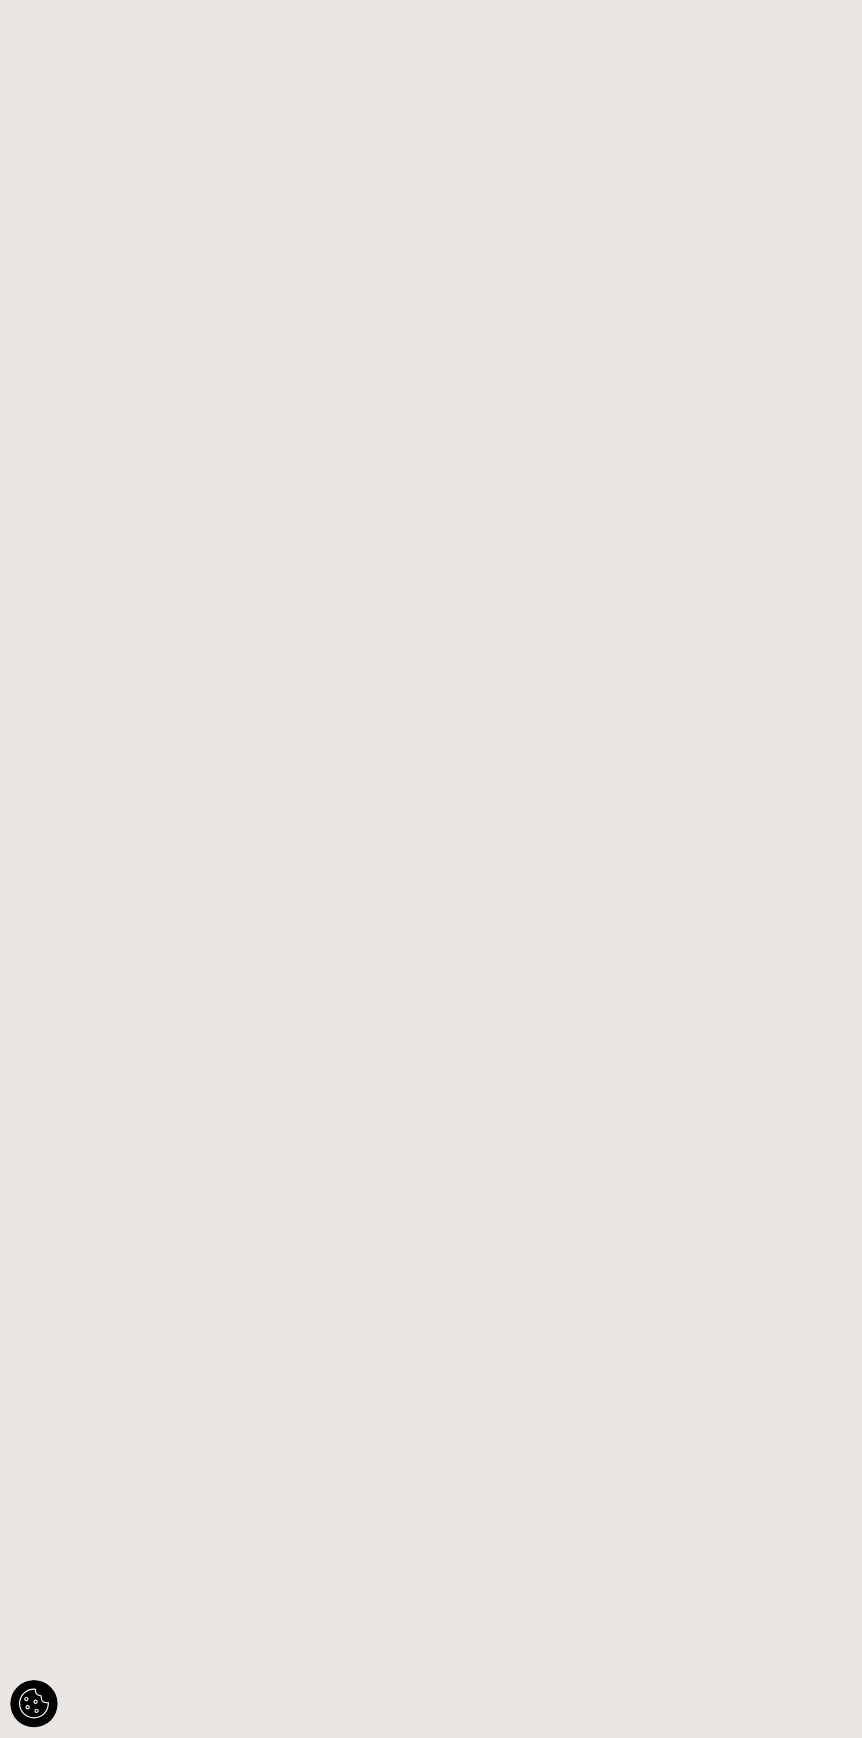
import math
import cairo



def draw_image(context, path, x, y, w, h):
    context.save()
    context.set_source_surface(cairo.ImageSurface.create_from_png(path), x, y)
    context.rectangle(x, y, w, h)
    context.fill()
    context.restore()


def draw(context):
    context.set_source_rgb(233 / 255, 230 / 255, 228 / 255)
    context.paint()
    draw_image(context, "images/1.png", 10, 1680, 48, 48)


surface = cairo.ImageSurface(cairo.Format.RGB24, 862, 1738)
context = cairo.Context(surface)
options = cairo.FontOptions()
options.set_hint_metrics(cairo.HintMetrics.OFF)
options.set_hint_style(cairo.HintStyle.NONE)
context.set_font_options(options)
context.set_miter_limit(4)
draw(context)
surface.write_to_png("out.png")
